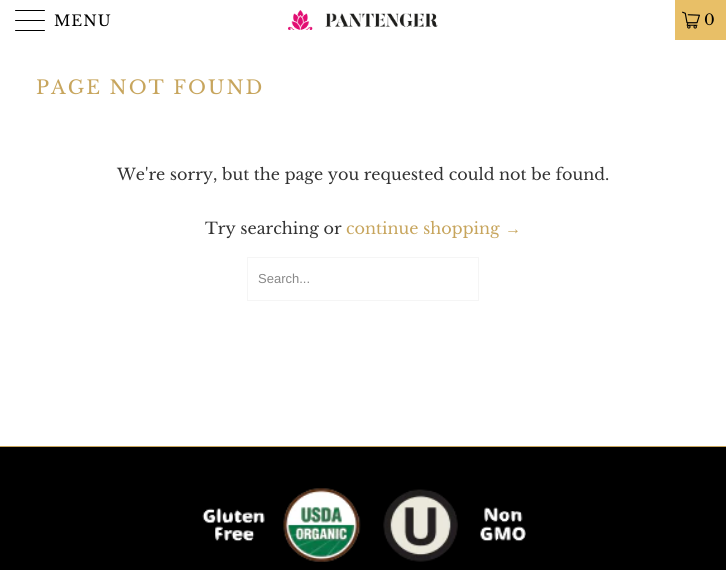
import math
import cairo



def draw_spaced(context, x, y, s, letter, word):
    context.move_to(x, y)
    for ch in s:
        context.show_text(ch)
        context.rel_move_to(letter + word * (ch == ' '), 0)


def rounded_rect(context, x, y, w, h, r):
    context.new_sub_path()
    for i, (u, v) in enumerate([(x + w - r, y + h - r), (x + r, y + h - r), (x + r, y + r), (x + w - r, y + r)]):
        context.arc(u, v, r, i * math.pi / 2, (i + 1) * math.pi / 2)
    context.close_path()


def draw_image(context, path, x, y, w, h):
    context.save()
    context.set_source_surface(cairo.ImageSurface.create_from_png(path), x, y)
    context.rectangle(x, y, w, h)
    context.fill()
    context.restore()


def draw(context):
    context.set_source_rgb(1, 1, 1)
    context.paint()
    context.set_source_rgb(0, 0, 0)
    rounded_rect(context, 15, 10, 30, 1, 0.5)
    context.fill()
    rounded_rect(context, 15, 20, 30, 1, 0.5)
    context.fill()
    rounded_rect(context, 15, 30, 30, 1, 0.5)
    context.fill()
    draw_image(context, "images/1.png", 288, 10, 150, 20)
    context.set_source_rgb(232 / 255, 191 / 255, 103 / 255)
    context.rectangle(675, 0, 51, 40)
    context.fill()
    draw_image(context, "images/2.png", 682, 11, 18, 18)
    context.rectangle(247.5, 257.5, 231, 43)
    context.set_source_rgb(245 / 255, 245 / 255, 245 / 255)
    context.set_line_width(1)
    context.stroke()
    context.set_source_rgb(0, 0, 0)
    context.rectangle(0, 447, 726, 123)
    context.fill()
    context.set_source_rgb(199 / 255, 165 / 255, 93 / 255)
    context.rectangle(0, 446, 726, 1)
    context.fill()
    draw_image(context, "images/3.png", 202, 488, 324, 74)
    context.select_font_face("Libre Baskerville")
    context.set_font_size(15)
    context.set_source_rgb(0, 0, 0)
    draw_spaced(context, 54, 26, "MENU", 1, 0)
    draw_spaced(context, 704, 25, "0", 1, 0)
    context.set_font_size(19)
    context.set_source_rgb(199 / 255, 165 / 255, 93 / 255)
    draw_spaced(context, 36, 94, "PAGE NOT FOUND", 2, 0)
    context.set_font_size(16)
    context.set_source_rgb(51 / 255, 51 / 255, 51 / 255)
    context.move_to(117, 180)
    context.show_text("We're sorry, but the page you requested could not be found.")
    context.move_to(205, 234)
    context.show_text("Try searching or")
    context.set_source_rgb(199 / 255, 165 / 255, 93 / 255)
    context.move_to(346, 234)
    context.show_text("continue shopping")
    context.select_font_face("Liberation Serif")
    context.move_to(505, 234)
    context.show_text("→")
    context.select_font_face("Liberation Sans")
    context.set_font_size(13)
    context.set_source_rgb(136 / 255, 136 / 255, 136 / 255)
    context.move_to(258, 283)
    context.show_text("Search...")


surface = cairo.ImageSurface(cairo.Format.RGB24, 726, 570)
context = cairo.Context(surface)
options = cairo.FontOptions()
options.set_hint_metrics(cairo.HintMetrics.OFF)
options.set_hint_style(cairo.HintStyle.NONE)
context.set_font_options(options)
context.set_miter_limit(4)
draw(context)
surface.write_to_png("out.png")
